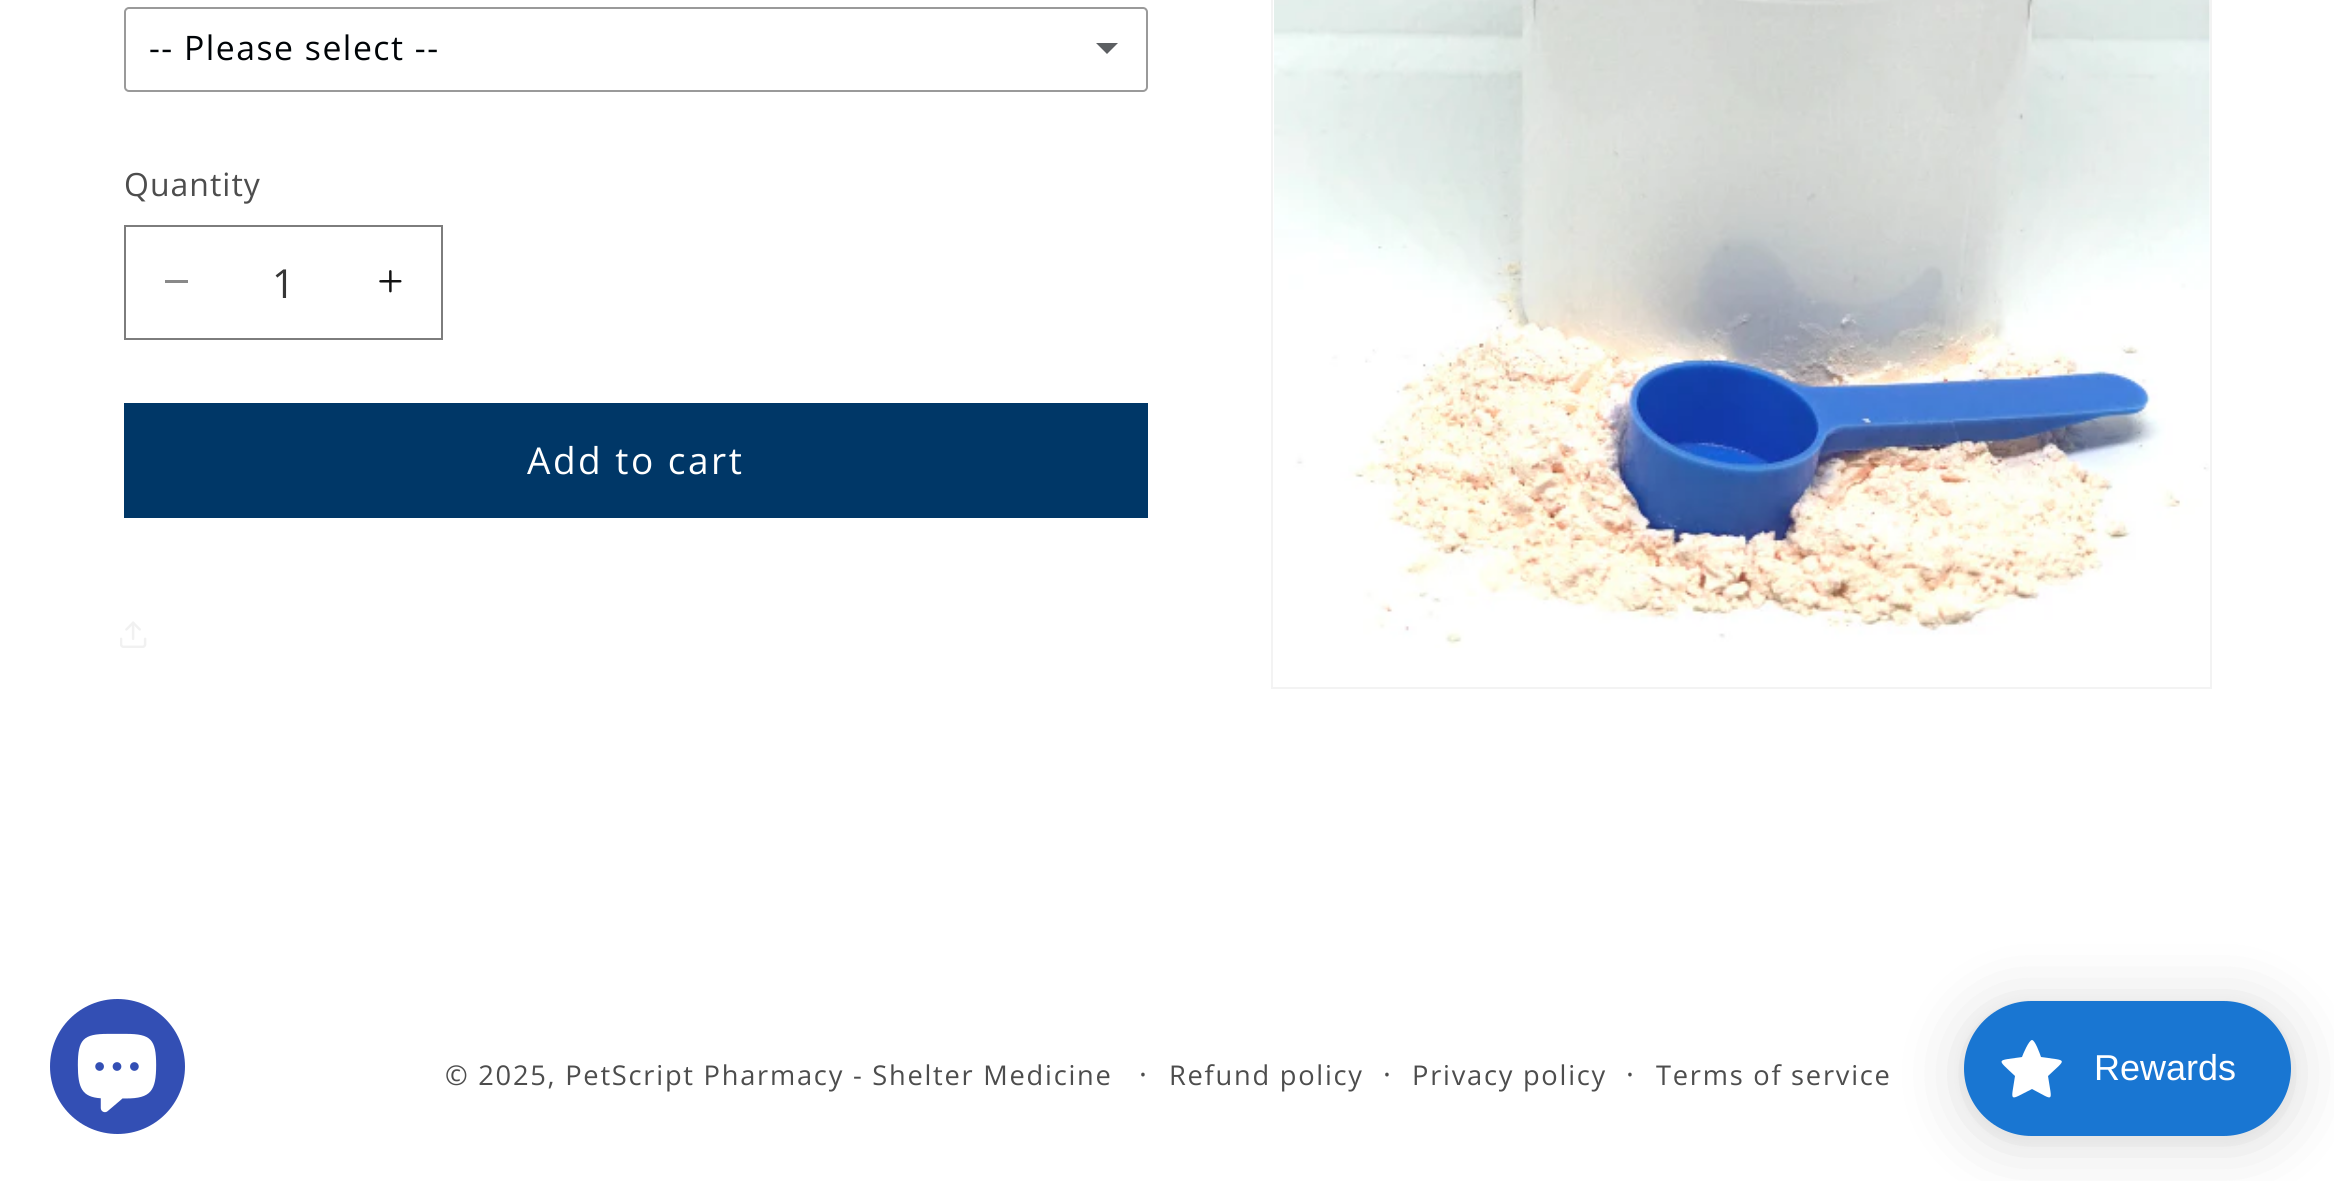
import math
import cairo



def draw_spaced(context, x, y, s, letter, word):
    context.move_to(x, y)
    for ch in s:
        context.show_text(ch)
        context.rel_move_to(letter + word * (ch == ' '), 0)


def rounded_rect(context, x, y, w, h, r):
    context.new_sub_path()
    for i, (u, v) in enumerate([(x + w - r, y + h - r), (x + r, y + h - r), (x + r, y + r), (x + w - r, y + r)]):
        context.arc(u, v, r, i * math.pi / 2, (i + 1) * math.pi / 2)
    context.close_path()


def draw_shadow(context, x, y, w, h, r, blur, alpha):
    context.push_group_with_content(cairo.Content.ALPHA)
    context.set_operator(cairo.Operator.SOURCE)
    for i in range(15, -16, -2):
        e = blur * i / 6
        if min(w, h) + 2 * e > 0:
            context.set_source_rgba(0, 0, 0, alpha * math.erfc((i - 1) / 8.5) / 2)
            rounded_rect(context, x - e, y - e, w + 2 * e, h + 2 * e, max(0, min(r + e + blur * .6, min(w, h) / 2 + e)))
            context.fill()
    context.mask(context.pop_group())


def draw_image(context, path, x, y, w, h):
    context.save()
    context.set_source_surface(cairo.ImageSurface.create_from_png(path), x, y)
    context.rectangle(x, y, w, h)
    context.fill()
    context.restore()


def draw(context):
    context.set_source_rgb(1, 1, 1)
    context.paint()
    rounded_rect(context, 125, 8, 1022, 83, 4)
    context.set_source_rgb(154 / 255, 154 / 255, 154 / 255)
    context.stroke()
    context.set_source_rgb(92 / 255, 95 / 255, 98 / 255)
    context.new_path()
    context.move_to(1096, 43)
    context.line_to(1118, 43)
    context.line_to(1107, 54)
    context.close_path()
    context.fill()
    context.set_source_rgb(137 / 255, 137 / 255, 137 / 255)
    context.rectangle(165, 280, 23, 3)
    context.fill()
    draw_image(context, "images/1.png", 379, 270, 23, 23)
    context.rectangle(125, 226, 317, 113)
    context.set_source_rgb(125 / 255, 125 / 255, 125 / 255)
    context.stroke()
    context.set_source_rgb(0, 55 / 255, 103 / 255)
    context.rectangle(124, 403, 1024, 115)
    context.fill()
    draw_image(context, "images/2.png", 120, 621, 27, 27)
    context.rectangle(1272, -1, 939, 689)
    context.set_source_rgb(243 / 255, 243 / 255, 243 / 255)
    context.stroke()
    draw_image(context, "images/3.png", 1274, 0, 936, 648)
    context.set_source_rgb(51 / 255, 79 / 255, 180 / 255)
    context.arc(117.5, 1066.5, 67.5, 0, 2 * math.pi)
    context.fill()
    draw_image(context, "images/4.png", 77, 1033, 80, 80)
    context.set_source_rgb(0, 0, 0)
    draw_shadow(context, 1964, 1006, 327, 135, 67.5, 34, 0.15)
    draw_shadow(context, 1964, 1004, 327, 135, 67.5, 7, 0.05)
    context.set_source_rgb(25 / 255, 118 / 255, 210 / 255)
    rounded_rect(context, 1964, 1001, 327, 135, 67.5)
    context.fill()
    context.set_source_rgb(1, 1, 1)
    context.new_path()
    context.move_to(2032, 1040)
    context.curve_to(2029, 1040, 2023, 1054, 2022, 1057)
    context.curve_to(1996, 1061, 1996, 1058, 2015, 1076)
    context.curve_to(2011, 1103, 2008, 1101, 2032, 1089)
    context.curve_to(2055, 1101, 2052, 1103, 2048, 1076)
    context.curve_to(2067, 1058, 2068, 1061, 2041, 1057)
    context.curve_to(2040, 1054, 2035, 1040, 2032, 1040)
    context.close_path()
    context.fill()
    context.select_font_face("Open Sans")
    context.set_font_size(33.75)
    context.set_source_rgb(0, 4 / 255, 7 / 255)
    draw_spaced(context, 149, 60, "-- Please select --", 1.5, 0)
    context.set_font_size(32)
    context.set_source_rgb(77 / 255, 77 / 255, 77 / 255)
    draw_spaced(context, 124, 196, "Quantity", 1, 0)
    context.set_font_size(40)
    context.set_source_rgb(54 / 255, 54 / 255, 54 / 255)
    context.move_to(272, 298)
    context.show_text("1")
    context.set_font_size(37)
    context.set_source_rgb(1, 1, 1)
    draw_spaced(context, 527, 474, "Add to cart", 2.5, 0)
    context.set_font_size(27.25)
    context.set_source_rgb(77 / 255, 77 / 255, 77 / 255)
    draw_spaced(context, 445, 1085, "© 2025, PetScript Pharmacy - Shelter Medicine", 1.75, 0)
    context.set_font_size(30)
    draw_spaced(context, 1139, 1085, "·", 1.75, 0)
    context.set_font_size(27.25)
    draw_spaced(context, 1169, 1085, "Refund policy", 1.75, 0)
    context.set_font_size(30)
    draw_spaced(context, 1383, 1085, "·", 1.75, 0)
    context.set_font_size(27.25)
    draw_spaced(context, 1412, 1085, "Privacy policy", 1.75, 0)
    context.set_font_size(30)
    draw_spaced(context, 1626, 1085, "·", 1.75, 0)
    context.set_font_size(27.25)
    draw_spaced(context, 1656, 1085, "Terms of service", 1.75, 0)
    context.select_font_face("Liberation Sans")
    context.set_font_size(36)
    context.set_source_rgb(1, 1, 1)
    context.move_to(2094, 1080)
    context.show_text("Rewards")


surface = cairo.ImageSurface(cairo.Format.RGB24, 2334, 1181)
context = cairo.Context(surface)
options = cairo.FontOptions()
options.set_hint_metrics(cairo.HintMetrics.OFF)
options.set_hint_style(cairo.HintStyle.NONE)
context.set_font_options(options)
context.set_miter_limit(4)
draw(context)
surface.write_to_png("out.png")
